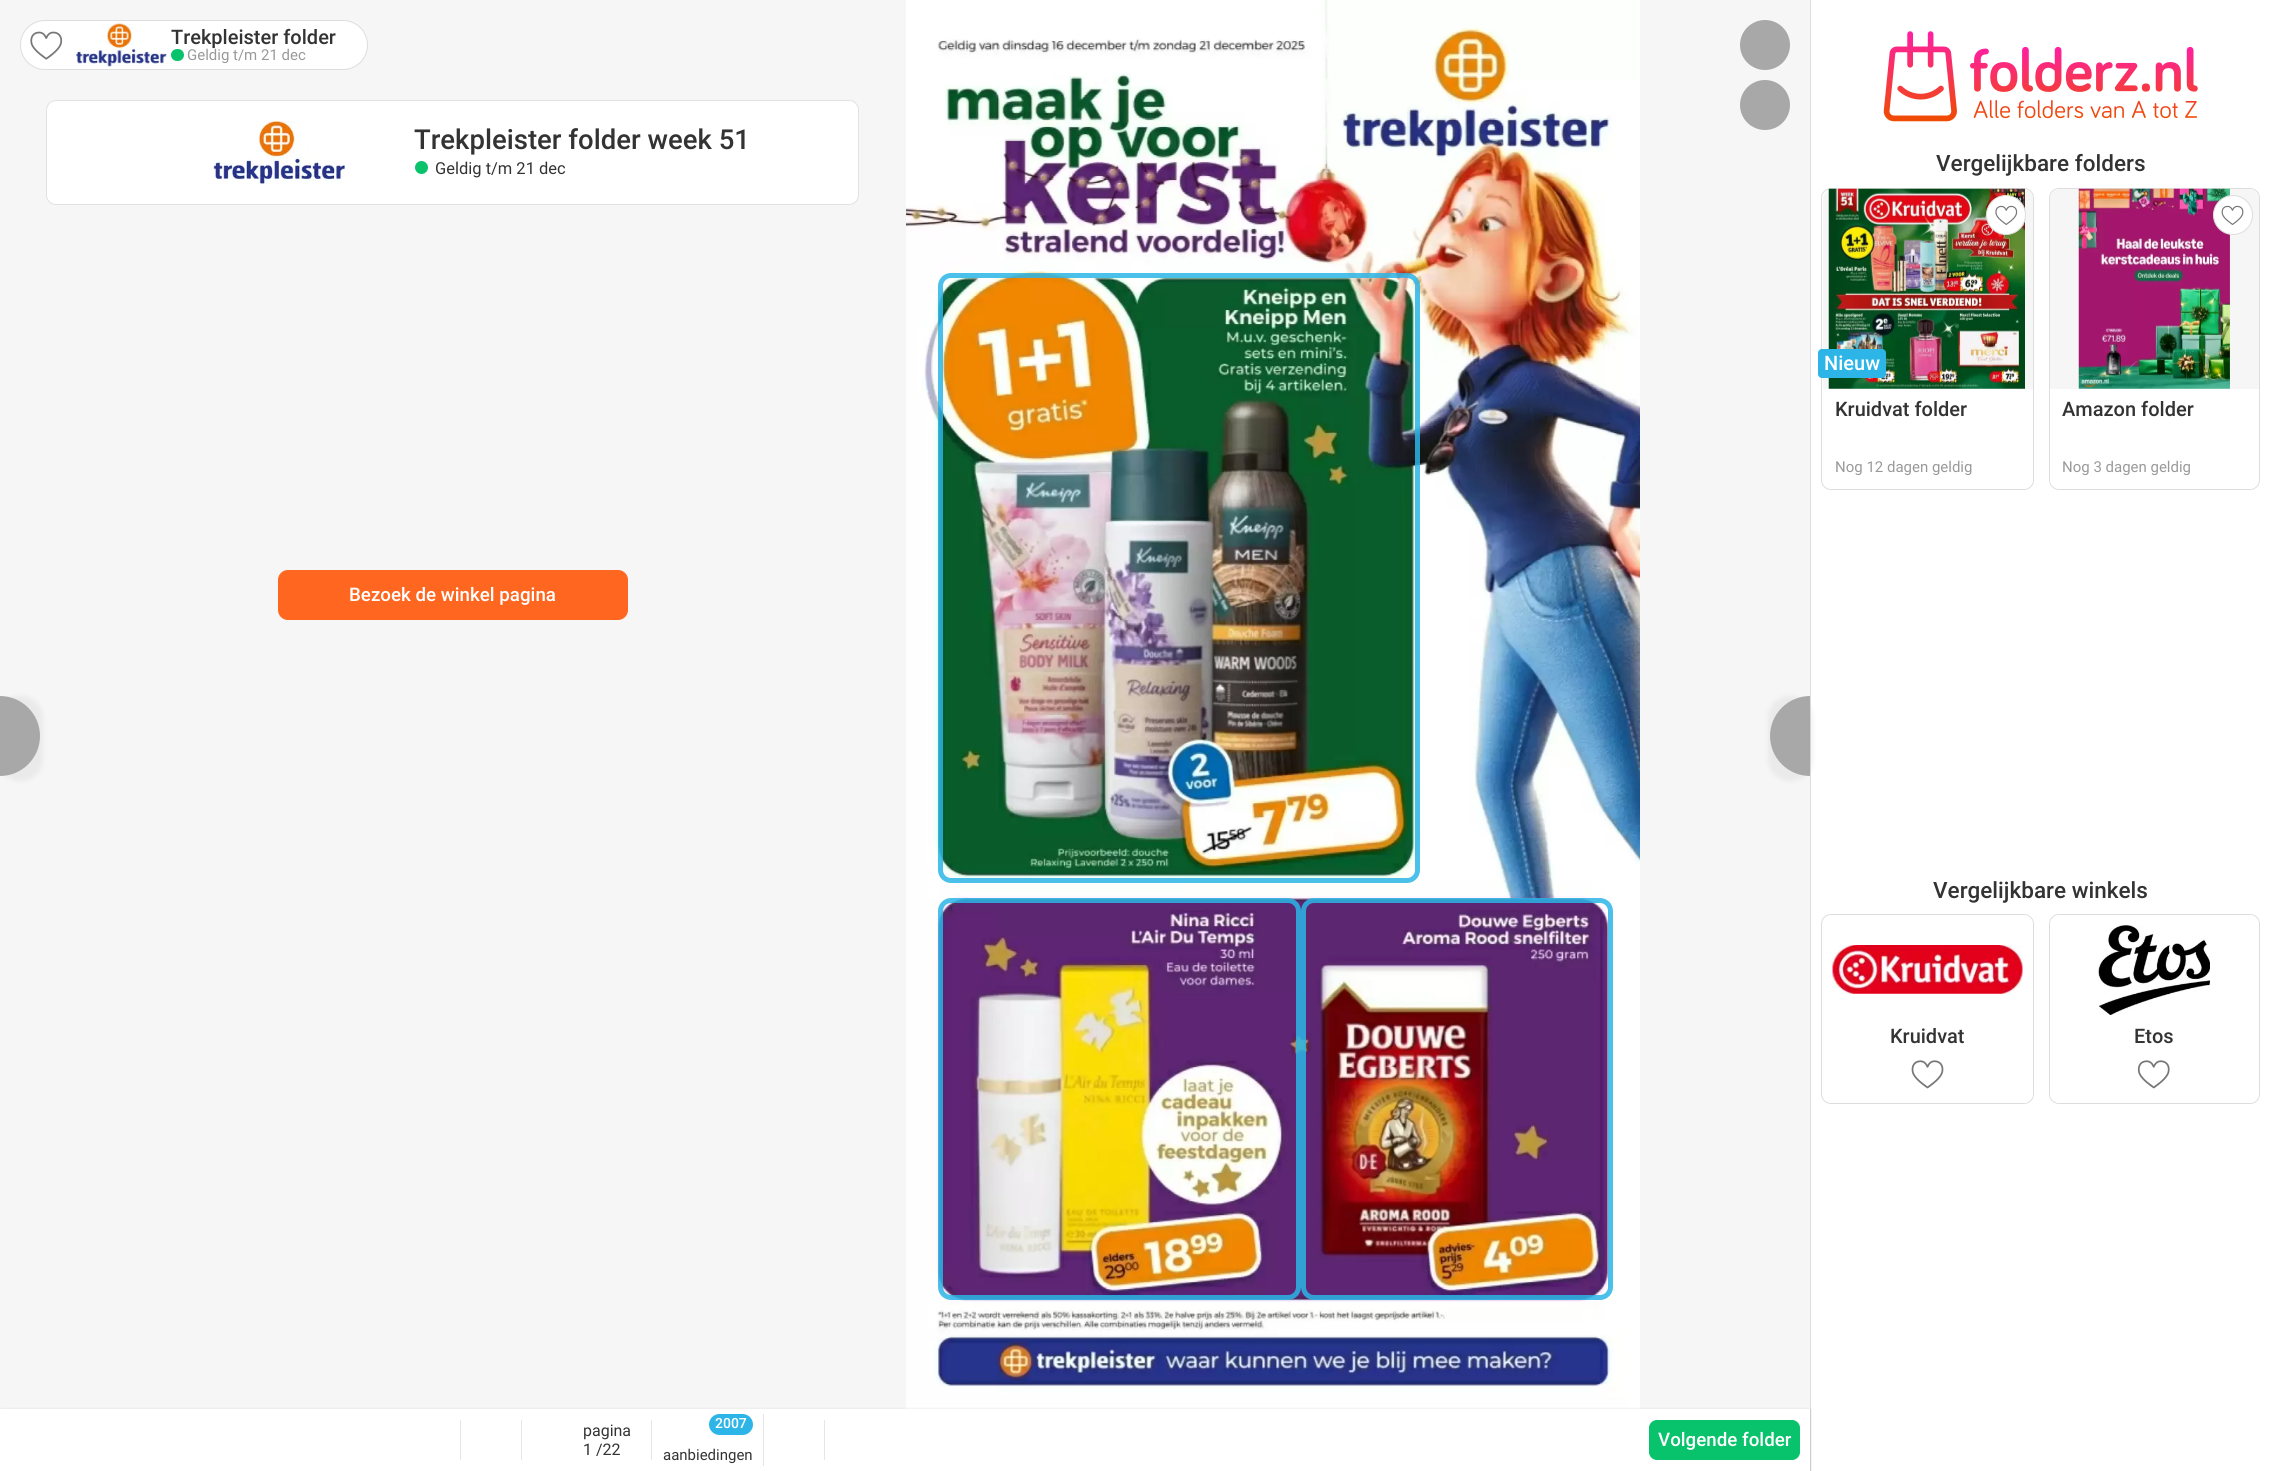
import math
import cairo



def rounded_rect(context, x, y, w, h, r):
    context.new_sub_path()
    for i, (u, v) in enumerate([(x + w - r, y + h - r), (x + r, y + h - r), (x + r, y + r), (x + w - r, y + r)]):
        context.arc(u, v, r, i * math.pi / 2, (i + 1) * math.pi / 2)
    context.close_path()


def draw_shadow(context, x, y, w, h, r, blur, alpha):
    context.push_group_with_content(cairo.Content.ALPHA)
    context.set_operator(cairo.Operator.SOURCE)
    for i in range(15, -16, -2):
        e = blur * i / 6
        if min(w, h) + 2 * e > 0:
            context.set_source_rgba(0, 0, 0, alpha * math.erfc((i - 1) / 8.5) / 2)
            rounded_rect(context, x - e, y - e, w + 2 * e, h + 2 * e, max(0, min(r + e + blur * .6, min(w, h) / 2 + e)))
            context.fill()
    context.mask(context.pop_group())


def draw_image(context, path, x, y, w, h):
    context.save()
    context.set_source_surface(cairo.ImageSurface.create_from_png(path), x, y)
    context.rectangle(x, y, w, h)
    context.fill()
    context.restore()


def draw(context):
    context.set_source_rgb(1, 1, 1)
    context.paint()
    context.set_source_rgb(246 / 255, 246 / 255, 246 / 255)
    context.rectangle(0, 0, 1810, 1409)
    context.fill()
    context.set_source_rgb(1, 1, 1)
    rounded_rect(context, 20.5, 20.5, 347, 49, 24.5)
    context.fill_preserve()
    context.set_source_rgb(221 / 255, 221 / 255, 221 / 255)
    context.set_line_width(1)
    context.stroke()
    draw_image(context, "images/1.png", 30, 31, 33, 29)
    draw_image(context, "images/2.png", 76, 23, 91, 44)
    context.set_source_rgb(8 / 255, 195 / 255, 108 / 255)
    rounded_rect(context, 171, 49, 13, 12, 6)
    context.fill()
    context.set_source_rgb(168 / 255, 168 / 255, 168 / 255)
    context.arc(1765, 45, 25, 0, 2 * math.pi)
    context.fill()
    context.arc(1765, 105, 25, 0, 2 * math.pi)
    context.fill()
    context.set_source_rgb(1, 1, 1)
    rounded_rect(context, 46, 100, 813, 105, 10)
    context.fill()
    rounded_rect(context, 46.5, 100.5, 812, 104, 9.5)
    context.set_source_rgba(0, 0, 0, 0.12)
    context.stroke()
    draw_image(context, "images/3.png", 213, 121, 132, 63)
    context.set_source_rgb(8 / 255, 195 / 255, 108 / 255)
    context.arc(421.5, 167.5, 6.5, 0, 2 * math.pi)
    context.fill()
    context.set_source_rgb(1, 102 / 255, 31 / 255)
    rounded_rect(context, 278.5, 570.5, 349, 49, 9.5)
    context.fill_preserve()
    context.stroke()
    draw_image(context, "images/4.png", 906, 0, 734, 1409)
    rounded_rect(context, 940.5, 275.5, 477, 605, 10.5)
    context.set_source_rgba(44 / 255, 181 / 255, 230 / 255, 0.85)
    context.set_line_width(5)
    context.stroke()
    rounded_rect(context, 940.5, 900.5, 358, 397, 10.5)
    context.stroke()
    rounded_rect(context, 1303.5, 900.5, 307, 397, 10.5)
    context.stroke()
    context.save()
    context.set_fill_rule(cairo.FillRule.EVEN_ODD)
    context.new_path()
    context.move_to(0, 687)
    context.line_to(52, 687)
    context.line_to(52, 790)
    context.line_to(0, 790)
    context.close_path()
    context.move_to(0, 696)
    context.curve_to(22, 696, 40, 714, 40, 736)
    context.curve_to(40, 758, 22, 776, 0, 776)
    context.close_path()
    context.clip()
    context.set_source_rgb(0, 0, 0)
    draw_shadow(context, -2, 696, 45, 85, 43, 2.5, 0.05)
    context.restore()
    context.set_source_rgba(51 / 255, 51 / 255, 51 / 255, 0.4)
    context.new_path()
    context.move_to(0, 696)
    context.curve_to(22, 696, 40, 714, 40, 736)
    context.curve_to(40, 758, 22, 776, 0, 776)
    context.close_path()
    context.fill()
    context.set_source_rgb(221 / 255, 221 / 255, 221 / 255)
    context.rectangle(1810, 0, 1, 1471)
    context.fill()
    context.save()
    context.set_fill_rule(cairo.FillRule.EVEN_ODD)
    context.new_path()
    context.move_to(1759, 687)
    context.line_to(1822, 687)
    context.line_to(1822, 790)
    context.line_to(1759, 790)
    context.close_path()
    context.move_to(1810, 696)
    context.line_to(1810, 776)
    context.curve_to(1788, 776, 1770, 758, 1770, 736)
    context.curve_to(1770, 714, 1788, 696, 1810, 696)
    context.close_path()
    context.clip()
    context.set_source_rgb(0, 0, 0)
    draw_shadow(context, 1768, 696, 45, 85, 43, 2.5, 0.05)
    context.restore()
    context.set_source_rgba(51 / 255, 51 / 255, 51 / 255, 0.4)
    context.new_path()
    context.move_to(1810, 696)
    context.line_to(1810, 776)
    context.curve_to(1788, 776, 1770, 758, 1770, 736)
    context.curve_to(1770, 714, 1788, 696, 1810, 696)
    context.close_path()
    context.fill()
    context.set_source_rgb(0, 0, 0)
    draw_shadow(context, 1, 1409, 1810, 62, 0, 1, 0.1)
    context.set_source_rgb(1, 1, 1)
    context.rectangle(0, 1409, 1810, 62)
    context.fill()
    context.set_source_rgb(230 / 255, 230 / 255, 230 / 255)
    context.rectangle(460, 1420, 1, 40)
    context.fill()
    context.rectangle(521, 1420, 1, 40)
    context.fill()
    context.rectangle(651, 1420, 1, 40)
    context.fill()
    context.rectangle(763, 1414, 1, 52)
    context.fill()
    context.set_source_rgb(44 / 255, 181 / 255, 230 / 255)
    rounded_rect(context, 709, 1414, 44, 21, 10.5)
    context.fill()
    context.set_source_rgb(230 / 255, 230 / 255, 230 / 255)
    context.rectangle(824, 1420, 1, 40)
    context.fill()
    context.set_source_rgb(8 / 255, 195 / 255, 108 / 255)
    rounded_rect(context, 1649.5, 1420.5, 150, 39, 7.5)
    context.fill_preserve()
    context.set_line_width(1)
    context.stroke()
    draw_image(context, "images/5.png", 1883, 31, 315, 91)
    rounded_rect(context, 1821.5, 188.5, 212, 301, 9.5)
    context.set_source_rgb(221 / 255, 221 / 255, 221 / 255)
    context.stroke()
    context.set_source_rgb(246 / 255, 246 / 255, 246 / 255)
    context.new_path()
    context.move_to(1833, 189)
    context.line_to(2023, 189)
    context.curve_to(2028.5, 189, 2033, 193.5, 2033, 199)
    context.line_to(2033, 389)
    context.line_to(1823, 389)
    context.line_to(1823, 199)
    context.curve_to(1823, 193.5, 1827.5, 189, 1833, 189)
    context.close_path()
    context.fill()
    draw_image(context, "images/7.png", 1828, 188, 197, 201)
    context.set_source_rgb(1, 1, 1)
    context.arc(2006, 215, 19.5, 0, 2 * math.pi)
    context.fill_preserve()
    context.set_source_rgb(221 / 255, 221 / 255, 221 / 255)
    context.stroke()
    draw_image(context, "images/6.png", 1995, 205, 23, 20)
    context.set_source_rgb(44 / 255, 181 / 255, 230 / 255)
    rounded_rect(context, 1818, 349, 68, 29, 4)
    context.fill()
    context.set_source_rgb(1, 1, 1)
    context.new_path()
    context.move_to(1823, 389)
    context.line_to(2033, 389)
    context.line_to(2033, 479)
    context.curve_to(2033, 484.5, 2028.5, 489, 2023, 489)
    context.line_to(1833, 489)
    context.curve_to(1827.5, 489, 1823, 484.5, 1823, 479)
    context.close_path()
    context.fill()
    rounded_rect(context, 2049.5, 188.5, 210, 301, 9.5)
    context.set_source_rgb(221 / 255, 221 / 255, 221 / 255)
    context.stroke()
    context.set_source_rgb(246 / 255, 246 / 255, 246 / 255)
    context.new_path()
    context.move_to(2060, 189)
    context.line_to(2249, 189)
    context.curve_to(2254.5, 189, 2259, 193.5, 2259, 199)
    context.line_to(2259, 389)
    context.line_to(2050, 389)
    context.line_to(2050, 199)
    context.curve_to(2050, 193.5, 2054.5, 189, 2060, 189)
    context.close_path()
    context.fill()
    draw_image(context, "images/8.png", 2078, 188, 152, 201)
    context.set_source_rgb(1, 1, 1)
    context.arc(2233, 215, 19.5, 0, 2 * math.pi)
    context.fill_preserve()
    context.set_source_rgb(221 / 255, 221 / 255, 221 / 255)
    context.stroke()
    draw_image(context, "images/9.png", 2221, 205, 23, 20)
    context.set_source_rgb(1, 1, 1)
    context.new_path()
    context.move_to(2050, 389)
    context.line_to(2259, 389)
    context.line_to(2259, 479)
    context.curve_to(2259, 484.5, 2254.5, 489, 2249, 489)
    context.line_to(2060, 489)
    context.curve_to(2054.5, 489, 2050, 484.5, 2050, 479)
    context.close_path()
    context.fill()
    rounded_rect(context, 1821.5, 914.5, 212, 189, 9.5)
    context.set_source_rgb(221 / 255, 221 / 255, 221 / 255)
    context.stroke()
    context.set_source_rgb(1, 1, 1)
    rounded_rect(context, 1823, 915, 210, 188, 10)
    context.fill()
    draw_image(context, "images/10.png", 1832, 945, 191, 49)
    draw_image(context, "images/11.png", 1911, 1060, 33, 29)
    rounded_rect(context, 2049.5, 914.5, 210, 189, 9.5)
    context.set_source_rgb(221 / 255, 221 / 255, 221 / 255)
    context.stroke()
    context.set_source_rgb(1, 1, 1)
    rounded_rect(context, 2050, 915, 209, 188, 10)
    context.fill()
    draw_image(context, "images/12.png", 2098, 925, 112, 90)
    draw_image(context, "images/13.png", 2137, 1060, 33, 29)
    context.select_font_face("Roboto Medium")
    context.set_font_size(20)
    context.set_source_rgb(51 / 255, 51 / 255, 51 / 255)
    context.move_to(171, 44)
    context.show_text("Trekpleister folder")
    context.select_font_face("Roboto")
    context.set_font_size(15)
    context.set_source_rgb(153 / 255, 153 / 255, 153 / 255)
    context.move_to(187, 60)
    context.show_text("Geldig t/m 21 dec")
    context.select_font_face("Roboto Medium")
    context.set_font_size(27.5)
    context.set_source_rgb(51 / 255, 51 / 255, 51 / 255)
    context.move_to(414, 149)
    context.show_text("Trekpleister folder week 51")
    context.select_font_face("Roboto")
    context.set_font_size(16.5)
    context.move_to(435, 174)
    context.show_text("Geldig t/m 21 dec")
    context.select_font_face("Roboto Medium")
    context.set_font_size(18.75)
    context.set_source_rgb(1, 1, 1)
    context.move_to(349, 601)
    context.show_text("Bezoek de winkel pagina")
    context.select_font_face("Roboto")
    context.set_font_size(16)
    context.set_source_rgb(51 / 255, 51 / 255, 51 / 255)
    context.move_to(583, 1436)
    context.show_text("pagina")
    context.move_to(583, 1455)
    context.show_text("1 /22")
    context.select_font_face("Roboto Medium")
    context.set_font_size(14)
    context.set_source_rgb(1, 1, 1)
    context.move_to(715, 1428)
    context.show_text("2007")
    context.select_font_face("Roboto")
    context.set_font_size(15)
    context.set_source_rgb(51 / 255, 51 / 255, 51 / 255)
    context.move_to(663, 1460)
    context.show_text("aanbiedingen")
    context.select_font_face("Roboto Medium")
    context.set_font_size(18.75)
    context.set_source_rgb(1, 1, 1)
    context.move_to(1658, 1446)
    context.show_text("Volgende folder")
    context.set_font_size(22.5)
    context.set_source_rgb(51 / 255, 51 / 255, 51 / 255)
    context.move_to(1936, 171)
    context.show_text("Vergelijkbare folders")
    context.set_font_size(20)
    context.set_source_rgb(1, 1, 1)
    context.move_to(1824, 370)
    context.show_text("Nieuw")
    context.set_source_rgb(51 / 255, 51 / 255, 51 / 255)
    context.move_to(1835, 416)
    context.show_text("Kruidvat folder")
    context.select_font_face("Roboto")
    context.set_font_size(15)
    context.set_source_rgb(153 / 255, 153 / 255, 153 / 255)
    context.move_to(1835, 472)
    context.show_text("Nog 12 dagen geldig")
    context.select_font_face("Roboto Medium")
    context.set_font_size(20)
    context.set_source_rgb(51 / 255, 51 / 255, 51 / 255)
    context.move_to(2062, 416)
    context.show_text("Amazon folder")
    context.select_font_face("Roboto")
    context.set_font_size(15)
    context.set_source_rgb(153 / 255, 153 / 255, 153 / 255)
    context.move_to(2062, 472)
    context.show_text("Nog 3 dagen geldig")
    context.select_font_face("Roboto Medium")
    context.set_font_size(22.5)
    context.set_source_rgb(51 / 255, 51 / 255, 51 / 255)
    context.move_to(1933, 898)
    context.show_text("Vergelijkbare winkels")
    context.set_font_size(20)
    context.move_to(1890, 1043)
    context.show_text("Kruidvat")
    context.move_to(2134, 1043)
    context.show_text("Etos")


surface = cairo.ImageSurface(cairo.Format.RGB24, 2288, 1471)
context = cairo.Context(surface)
options = cairo.FontOptions()
options.set_hint_metrics(cairo.HintMetrics.OFF)
options.set_hint_style(cairo.HintStyle.NONE)
context.set_font_options(options)
context.set_miter_limit(4)
draw(context)
surface.write_to_png("out.png")
